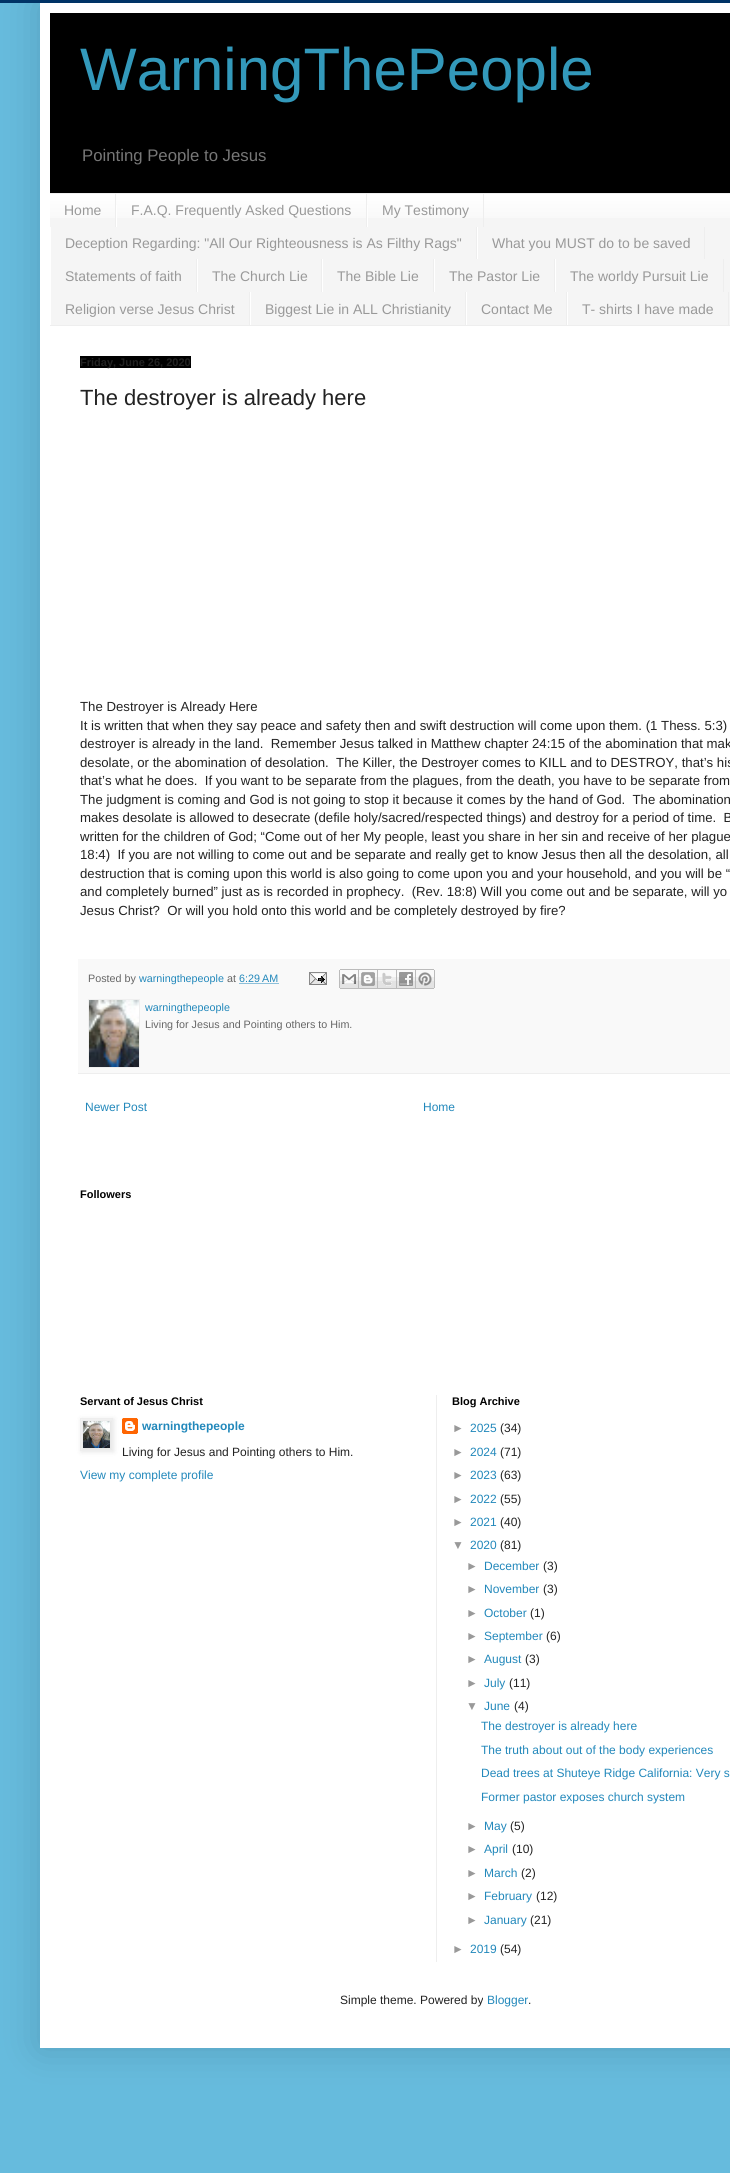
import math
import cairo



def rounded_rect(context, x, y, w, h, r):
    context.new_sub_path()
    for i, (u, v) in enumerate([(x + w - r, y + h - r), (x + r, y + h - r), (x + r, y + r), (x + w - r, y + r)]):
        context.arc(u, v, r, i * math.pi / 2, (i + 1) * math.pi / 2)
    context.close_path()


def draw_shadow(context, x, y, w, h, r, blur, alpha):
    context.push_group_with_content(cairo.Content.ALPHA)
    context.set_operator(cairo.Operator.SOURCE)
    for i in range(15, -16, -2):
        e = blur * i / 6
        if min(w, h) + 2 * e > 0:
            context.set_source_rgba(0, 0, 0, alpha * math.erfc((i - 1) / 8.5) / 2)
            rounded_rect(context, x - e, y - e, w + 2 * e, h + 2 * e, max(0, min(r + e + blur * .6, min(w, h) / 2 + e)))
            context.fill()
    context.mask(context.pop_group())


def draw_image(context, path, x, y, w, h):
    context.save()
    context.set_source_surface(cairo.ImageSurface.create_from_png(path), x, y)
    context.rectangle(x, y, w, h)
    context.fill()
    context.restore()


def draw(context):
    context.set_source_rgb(102 / 255, 187 / 255, 221 / 255)
    context.paint()
    context.set_source_rgb(0, 0, 0)
    draw_shadow(context, 40, 3, 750, 2045, 0, 20, 0.15)
    context.set_source_rgb(0, 51 / 255, 102 / 255)
    context.rectangle(0, 0, 730, 3)
    context.fill()
    context.set_source_rgb(1, 1, 1)
    context.rectangle(40, 3, 690, 2045)
    context.fill()
    context.set_source_rgb(0, 0, 0)
    context.rectangle(50, 13, 680, 180)
    context.fill()
    context.set_source_rgb(245 / 255, 245 / 255, 245 / 255)
    context.rectangle(50, 195, 680, 130)
    context.fill()
    draw_image(context, "images/1.png", 50, 194, 680, 24)
    context.set_source_rgb(238 / 255, 238 / 255, 238 / 255)
    context.rectangle(50, 193, 680, 1)
    context.fill()
    context.rectangle(50, 325, 680, 1)
    context.fill()
    context.rectangle(115, 194, 1, 33)
    context.fill()
    context.rectangle(366, 194, 1, 33)
    context.fill()
    context.set_source_rgb(1, 1, 1)
    context.rectangle(116, 205, 1, 22)
    context.fill()
    context.set_source_rgb(238 / 255, 238 / 255, 238 / 255)
    context.rectangle(483, 194, 1, 33)
    context.fill()
    context.set_source_rgb(1, 1, 1)
    context.rectangle(367, 205, 1, 22)
    context.fill()
    context.set_source_rgb(238 / 255, 238 / 255, 238 / 255)
    context.rectangle(476, 227, 1, 32)
    context.fill()
    context.set_source_rgb(1, 1, 1)
    context.rectangle(50, 227, 1, 98)
    context.fill()
    context.set_source_rgb(238 / 255, 238 / 255, 238 / 255)
    context.rectangle(704, 227, 1, 32)
    context.fill()
    context.set_source_rgb(1, 1, 1)
    context.rectangle(477, 227, 1, 32)
    context.fill()
    context.set_source_rgb(238 / 255, 238 / 255, 238 / 255)
    context.rectangle(196, 259, 1, 33)
    context.fill()
    context.rectangle(321, 259, 1, 33)
    context.fill()
    context.set_source_rgb(1, 1, 1)
    context.rectangle(197, 259, 1, 33)
    context.fill()
    context.set_source_rgb(238 / 255, 238 / 255, 238 / 255)
    context.rectangle(433, 259, 1, 33)
    context.fill()
    context.set_source_rgb(1, 1, 1)
    context.rectangle(322, 259, 1, 33)
    context.fill()
    context.set_source_rgb(238 / 255, 238 / 255, 238 / 255)
    context.rectangle(554, 259, 1, 33)
    context.fill()
    context.set_source_rgb(1, 1, 1)
    context.rectangle(434, 259, 1, 33)
    context.fill()
    context.set_source_rgb(238 / 255, 238 / 255, 238 / 255)
    context.rectangle(723, 259, 1, 33)
    context.fill()
    context.set_source_rgb(1, 1, 1)
    context.rectangle(555, 259, 1, 33)
    context.fill()
    context.set_source_rgb(238 / 255, 238 / 255, 238 / 255)
    context.rectangle(249, 292, 1, 33)
    context.fill()
    context.rectangle(465, 292, 1, 33)
    context.fill()
    context.set_source_rgb(1, 1, 1)
    context.rectangle(250, 292, 1, 33)
    context.fill()
    context.set_source_rgb(238 / 255, 238 / 255, 238 / 255)
    context.rectangle(566, 292, 1, 33)
    context.fill()
    context.set_source_rgb(1, 1, 1)
    context.rectangle(466, 292, 1, 33)
    context.fill()
    context.set_source_rgb(238 / 255, 238 / 255, 238 / 255)
    context.rectangle(728, 292, 1, 33)
    context.fill()
    context.set_source_rgb(1, 1, 1)
    context.rectangle(567, 292, 1, 33)
    context.fill()
    context.set_source_rgb(0, 0, 0)
    context.rectangle(80, 356, 111, 12)
    context.fill()
    context.set_source_rgb(249 / 255, 249 / 255, 249 / 255)
    context.rectangle(78, 959, 652, 114)
    context.fill()
    context.set_source_rgb(238 / 255, 238 / 255, 238 / 255)
    context.rectangle(78, 1073, 652, 1)
    context.fill()
    context.new_path()
    context.move_to(239.5, 983.5)
    context.line_to(278.5, 983.5)
    context.set_source_rgb(34 / 255, 136 / 255, 187 / 255)
    context.set_line_width(1)
    context.set_dash([1, 1])
    context.stroke()
    draw_image(context, "images/2.png", 309, 972, 18, 13)
    draw_image(context, "images/3.png", 339, 969, 20, 20)
    draw_image(context, "images/4.png", 359, 969, 19, 20)
    draw_image(context, "images/5.png", 378, 969, 19, 20)
    draw_image(context, "images/6.png", 397, 969, 19, 20)
    draw_image(context, "images/7.png", 416, 969, 19, 20)
    context.rectangle(88.5, 999.5, 51, 68)
    context.set_source_rgb(239 / 255, 239 / 255, 239 / 255)
    context.set_dash([])
    context.stroke()
    draw_image(context, "images/8.png", 89, 1000, 50, 67)
    draw_image(context, "images/10.png", 122, 1418, 16, 16)
    context.set_source_rgb(0, 0, 0)
    draw_shadow(context, 81, 1419, 33, 33, 0, 2.5, 0.1)
    context.rectangle(80.5, 1418.5, 32, 32)
    context.set_source_rgb(238 / 255, 238 / 255, 238 / 255)
    context.stroke()
    draw_image(context, "images/9.png", 83, 1421, 27, 27)
    context.rectangle(436, 1395, 1, 567)
    context.fill()
    context.select_font_face("Liberation Sans")
    context.set_font_size(60)
    context.set_source_rgb(51 / 255, 153 / 255, 187 / 255)
    context.move_to(80, 90)
    context.show_text("WarningThePeople")
    context.set_font_size(16.75)
    context.set_source_rgb(119 / 255, 119 / 255, 119 / 255)
    context.move_to(82, 161)
    context.show_text("Pointing People to Jesus")
    context.set_font_size(14)
    context.set_source_rgb(153 / 255, 153 / 255, 153 / 255)
    context.move_to(64, 215)
    context.show_text("Home")
    context.move_to(131, 215)
    context.show_text("F.A.Q. Frequently Asked Questions")
    context.move_to(382, 215)
    context.show_text("My Testimony")
    context.move_to(65, 248)
    context.show_text("Deception Regarding: \"All Our Righteousness is As Filthy Rags\"")
    context.move_to(492, 248)
    context.show_text("What you MUST do to be saved")
    context.move_to(65, 281)
    context.show_text("Statements of faith")
    context.move_to(212, 281)
    context.show_text("The Church Lie")
    context.move_to(337, 281)
    context.show_text("The Bible Lie")
    context.move_to(449, 281)
    context.show_text("The Pastor Lie")
    context.move_to(570, 281)
    context.show_text("The worldy Pursuit Lie")
    context.move_to(65, 314)
    context.show_text("Religion verse Jesus Christ")
    context.move_to(265, 314)
    context.show_text("Biggest Lie in ALL Christianity")
    context.move_to(481, 314)
    context.show_text("Contact Me")
    context.move_to(582, 314)
    context.show_text("T- shirts I have made")
    context.select_font_face("Liberation Sans", cairo.FontSlant.NORMAL, cairo.FontWeight.BOLD)
    context.set_font_size(11)
    context.set_source_rgb(34 / 255, 34 / 255, 34 / 255)
    context.move_to(80, 366)
    context.show_text("Friday, June 26, 2020")
    context.select_font_face("Liberation Sans")
    context.set_font_size(22)
    context.move_to(80, 405)
    context.show_text("The destroyer is already here")
    context.set_font_size(13.2)
    context.move_to(80, 711)
    context.show_text("The Destroyer is Already Here")
    context.move_to(80, 730)
    context.show_text("It is written that when they say peace and safety then and swift destruction will come upon them. (1 Thess. 5:3)")
    context.move_to(80, 748)
    context.show_text("destroyer is already in the land.  Remember Jesus talked in Matthew chapter 24:15 of the abomination that mak")
    context.move_to(80, 767)
    context.show_text("desolate, or the abomination of desolation.  The Killer, the Destroyer comes to KILL and to DESTROY, that’s his")
    context.move_to(80, 785)
    context.show_text("that’s what he does.  If you want to be separate from the plagues, from the death, you have to be separate from")
    context.move_to(80, 804)
    context.show_text("The judgment is coming and God is not going to stop it because it comes by the hand of God.  The abomination")
    context.move_to(80, 822)
    context.show_text("makes desolate is allowed to desecrate (defile holy/sacred/respected things) and destroy for a period of time.  B")
    context.move_to(80, 841)
    context.show_text("written for the children of God; “Come out of her My people, least you share in her sin and receive of her plague")
    context.move_to(80, 859)
    context.show_text("18:4)  If you are not willing to come out and be separate and really get to know Jesus then all the desolation, all")
    context.move_to(80, 878)
    context.show_text("destruction that is coming upon this world is also going to come upon you and your household, and you will be “")
    context.move_to(80, 896)
    context.show_text("and completely burned” just as is recorded in prophecy.  (Rev. 18:8) Will you come out and be separate, will yo")
    context.move_to(80, 915)
    context.show_text("Jesus Christ?  Or will you hold onto this world and be completely destroyed by fire?")
    context.set_font_size(10.75)
    context.set_source_rgb(102 / 255, 102 / 255, 102 / 255)
    context.move_to(88, 982)
    context.show_text("Posted by")
    context.set_source_rgb(34 / 255, 136 / 255, 187 / 255)
    context.move_to(139, 982)
    context.show_text("warningthepeople")
    context.set_source_rgb(102 / 255, 102 / 255, 102 / 255)
    context.move_to(227, 982)
    context.show_text("at")
    context.set_source_rgb(34 / 255, 136 / 255, 187 / 255)
    context.move_to(239, 982)
    context.show_text("6:29 AM")
    context.move_to(145, 1011)
    context.show_text("warningthepeople")
    context.set_source_rgb(102 / 255, 102 / 255, 102 / 255)
    context.move_to(145, 1028)
    context.show_text("Living for Jesus and Pointing others to Him.")
    context.set_font_size(12)
    context.set_source_rgb(34 / 255, 136 / 255, 187 / 255)
    context.move_to(85, 1111)
    context.show_text("Newer Post")
    context.move_to(423, 1111)
    context.show_text("Home")
    context.select_font_face("Liberation Sans", cairo.FontSlant.NORMAL, cairo.FontWeight.BOLD)
    context.set_font_size(11)
    context.set_source_rgb(0, 0, 0)
    context.move_to(80, 1198)
    context.show_text("Followers")
    context.move_to(80, 1405)
    context.show_text("Servant of Jesus Christ")
    context.set_font_size(12)
    context.set_source_rgb(34 / 255, 136 / 255, 187 / 255)
    context.move_to(142, 1430)
    context.show_text("warningthepeople")
    context.select_font_face("Liberation Sans")
    context.set_source_rgb(34 / 255, 34 / 255, 34 / 255)
    context.move_to(122, 1456)
    context.show_text("Living for Jesus and Pointing others to Him.")
    context.set_source_rgb(34 / 255, 136 / 255, 187 / 255)
    context.move_to(80, 1479)
    context.show_text("View my complete profile")
    context.select_font_face("Liberation Sans", cairo.FontSlant.NORMAL, cairo.FontWeight.BOLD)
    context.set_font_size(11)
    context.set_source_rgb(0, 0, 0)
    context.move_to(452, 1405)
    context.show_text("Blog Archive")
    context.select_font_face("Liberation Sans")
    context.set_font_size(12)
    context.set_source_rgb(153 / 255, 153 / 255, 153 / 255)
    context.move_to(452, 1432)
    context.show_text("►")
    context.set_source_rgb(34 / 255, 136 / 255, 187 / 255)
    context.move_to(470, 1432)
    context.show_text("2025")
    context.set_source_rgb(34 / 255, 34 / 255, 34 / 255)
    context.move_to(500, 1432)
    context.show_text("(34)")
    context.set_source_rgb(153 / 255, 153 / 255, 153 / 255)
    context.move_to(452, 1456)
    context.show_text("►")
    context.set_source_rgb(34 / 255, 136 / 255, 187 / 255)
    context.move_to(470, 1456)
    context.show_text("2024")
    context.set_source_rgb(34 / 255, 34 / 255, 34 / 255)
    context.move_to(500, 1456)
    context.show_text("(71)")
    context.set_source_rgb(153 / 255, 153 / 255, 153 / 255)
    context.move_to(452, 1479)
    context.show_text("►")
    context.set_source_rgb(34 / 255, 136 / 255, 187 / 255)
    context.move_to(470, 1479)
    context.show_text("2023")
    context.set_source_rgb(34 / 255, 34 / 255, 34 / 255)
    context.move_to(500, 1479)
    context.show_text("(63)")
    context.set_source_rgb(153 / 255, 153 / 255, 153 / 255)
    context.move_to(452, 1503)
    context.show_text("►")
    context.set_source_rgb(34 / 255, 136 / 255, 187 / 255)
    context.move_to(470, 1503)
    context.show_text("2022")
    context.set_source_rgb(34 / 255, 34 / 255, 34 / 255)
    context.move_to(500, 1503)
    context.show_text("(55)")
    context.set_source_rgb(153 / 255, 153 / 255, 153 / 255)
    context.move_to(452, 1526)
    context.show_text("►")
    context.set_source_rgb(34 / 255, 136 / 255, 187 / 255)
    context.move_to(470, 1526)
    context.show_text("2021")
    context.set_source_rgb(34 / 255, 34 / 255, 34 / 255)
    context.move_to(500, 1526)
    context.show_text("(40)")
    context.set_source_rgb(153 / 255, 153 / 255, 153 / 255)
    context.move_to(452, 1549)
    context.show_text("▼")
    context.set_source_rgb(34 / 255, 136 / 255, 187 / 255)
    context.move_to(470, 1549)
    context.show_text("2020")
    context.set_source_rgb(34 / 255, 34 / 255, 34 / 255)
    context.move_to(500, 1549)
    context.show_text("(81)")
    context.set_source_rgb(153 / 255, 153 / 255, 153 / 255)
    context.move_to(466, 1570)
    context.show_text("►")
    context.set_source_rgb(34 / 255, 136 / 255, 187 / 255)
    context.move_to(484, 1570)
    context.show_text("December")
    context.set_source_rgb(34 / 255, 34 / 255, 34 / 255)
    context.move_to(543, 1570)
    context.show_text("(3)")
    context.set_source_rgb(153 / 255, 153 / 255, 153 / 255)
    context.move_to(466, 1593)
    context.show_text("►")
    context.set_source_rgb(34 / 255, 136 / 255, 187 / 255)
    context.move_to(484, 1593)
    context.show_text("November")
    context.set_source_rgb(34 / 255, 34 / 255, 34 / 255)
    context.move_to(543, 1593)
    context.show_text("(3)")
    context.set_source_rgb(153 / 255, 153 / 255, 153 / 255)
    context.move_to(466, 1617)
    context.show_text("►")
    context.set_source_rgb(34 / 255, 136 / 255, 187 / 255)
    context.move_to(484, 1617)
    context.show_text("October")
    context.set_source_rgb(34 / 255, 34 / 255, 34 / 255)
    context.move_to(530, 1617)
    context.show_text("(1)")
    context.set_source_rgb(153 / 255, 153 / 255, 153 / 255)
    context.move_to(466, 1640)
    context.show_text("►")
    context.set_source_rgb(34 / 255, 136 / 255, 187 / 255)
    context.move_to(484, 1640)
    context.show_text("September")
    context.set_source_rgb(34 / 255, 34 / 255, 34 / 255)
    context.move_to(546, 1640)
    context.show_text("(6)")
    context.set_source_rgb(153 / 255, 153 / 255, 153 / 255)
    context.move_to(466, 1663)
    context.show_text("►")
    context.set_source_rgb(34 / 255, 136 / 255, 187 / 255)
    context.move_to(484, 1663)
    context.show_text("August")
    context.set_source_rgb(34 / 255, 34 / 255, 34 / 255)
    context.move_to(525, 1663)
    context.show_text("(3)")
    context.set_source_rgb(153 / 255, 153 / 255, 153 / 255)
    context.move_to(466, 1687)
    context.show_text("►")
    context.set_source_rgb(34 / 255, 136 / 255, 187 / 255)
    context.move_to(484, 1687)
    context.show_text("July")
    context.set_source_rgb(34 / 255, 34 / 255, 34 / 255)
    context.move_to(509, 1687)
    context.show_text("(11)")
    context.set_source_rgb(153 / 255, 153 / 255, 153 / 255)
    context.move_to(466, 1710)
    context.show_text("▼")
    context.set_source_rgb(34 / 255, 136 / 255, 187 / 255)
    context.move_to(484, 1710)
    context.show_text("June")
    context.set_source_rgb(34 / 255, 34 / 255, 34 / 255)
    context.move_to(514, 1710)
    context.show_text("(4)")
    context.set_source_rgb(34 / 255, 136 / 255, 187 / 255)
    context.move_to(481, 1730)
    context.show_text("The destroyer is already here")
    context.move_to(481, 1754)
    context.show_text("The truth about out of the body experiences")
    context.move_to(481, 1777)
    context.show_text("Dead trees at Shuteye Ridge California: Very s")
    context.move_to(481, 1801)
    context.show_text("Former pastor exposes church system")
    context.set_source_rgb(153 / 255, 153 / 255, 153 / 255)
    context.move_to(466, 1830)
    context.show_text("►")
    context.set_source_rgb(34 / 255, 136 / 255, 187 / 255)
    context.move_to(484, 1830)
    context.show_text("May")
    context.set_source_rgb(34 / 255, 34 / 255, 34 / 255)
    context.move_to(510, 1830)
    context.show_text("(5)")
    context.set_source_rgb(153 / 255, 153 / 255, 153 / 255)
    context.move_to(466, 1853)
    context.show_text("►")
    context.set_source_rgb(34 / 255, 136 / 255, 187 / 255)
    context.move_to(484, 1853)
    context.show_text("April")
    context.set_source_rgb(34 / 255, 34 / 255, 34 / 255)
    context.move_to(512, 1853)
    context.show_text("(10)")
    context.set_source_rgb(153 / 255, 153 / 255, 153 / 255)
    context.move_to(466, 1877)
    context.show_text("►")
    context.set_source_rgb(34 / 255, 136 / 255, 187 / 255)
    context.move_to(484, 1877)
    context.show_text("March")
    context.set_source_rgb(34 / 255, 34 / 255, 34 / 255)
    context.move_to(521, 1877)
    context.show_text("(2)")
    context.set_source_rgb(153 / 255, 153 / 255, 153 / 255)
    context.move_to(466, 1900)
    context.show_text("►")
    context.set_source_rgb(34 / 255, 136 / 255, 187 / 255)
    context.move_to(484, 1900)
    context.show_text("February")
    context.set_source_rgb(34 / 255, 34 / 255, 34 / 255)
    context.move_to(536, 1900)
    context.show_text("(12)")
    context.set_source_rgb(153 / 255, 153 / 255, 153 / 255)
    context.move_to(466, 1924)
    context.show_text("►")
    context.set_source_rgb(34 / 255, 136 / 255, 187 / 255)
    context.move_to(484, 1924)
    context.show_text("January")
    context.set_source_rgb(34 / 255, 34 / 255, 34 / 255)
    context.move_to(530, 1924)
    context.show_text("(21)")
    context.set_source_rgb(153 / 255, 153 / 255, 153 / 255)
    context.move_to(452, 1953)
    context.show_text("►")
    context.set_source_rgb(34 / 255, 136 / 255, 187 / 255)
    context.move_to(470, 1953)
    context.show_text("2019")
    context.set_source_rgb(34 / 255, 34 / 255, 34 / 255)
    context.move_to(500, 1953)
    context.show_text("(54)")
    context.move_to(340, 2004)
    context.show_text("Simple theme. Powered by")
    context.set_source_rgb(34 / 255, 136 / 255, 187 / 255)
    context.move_to(487, 2004)
    context.show_text("Blogger")
    context.set_source_rgb(34 / 255, 34 / 255, 34 / 255)
    context.move_to(528, 2004)
    context.show_text(".")


surface = cairo.ImageSurface(cairo.Format.RGB24, 730, 2173)
context = cairo.Context(surface)
options = cairo.FontOptions()
options.set_hint_metrics(cairo.HintMetrics.OFF)
options.set_hint_style(cairo.HintStyle.NONE)
context.set_font_options(options)
context.set_miter_limit(4)
draw(context)
surface.write_to_png("out.png")
